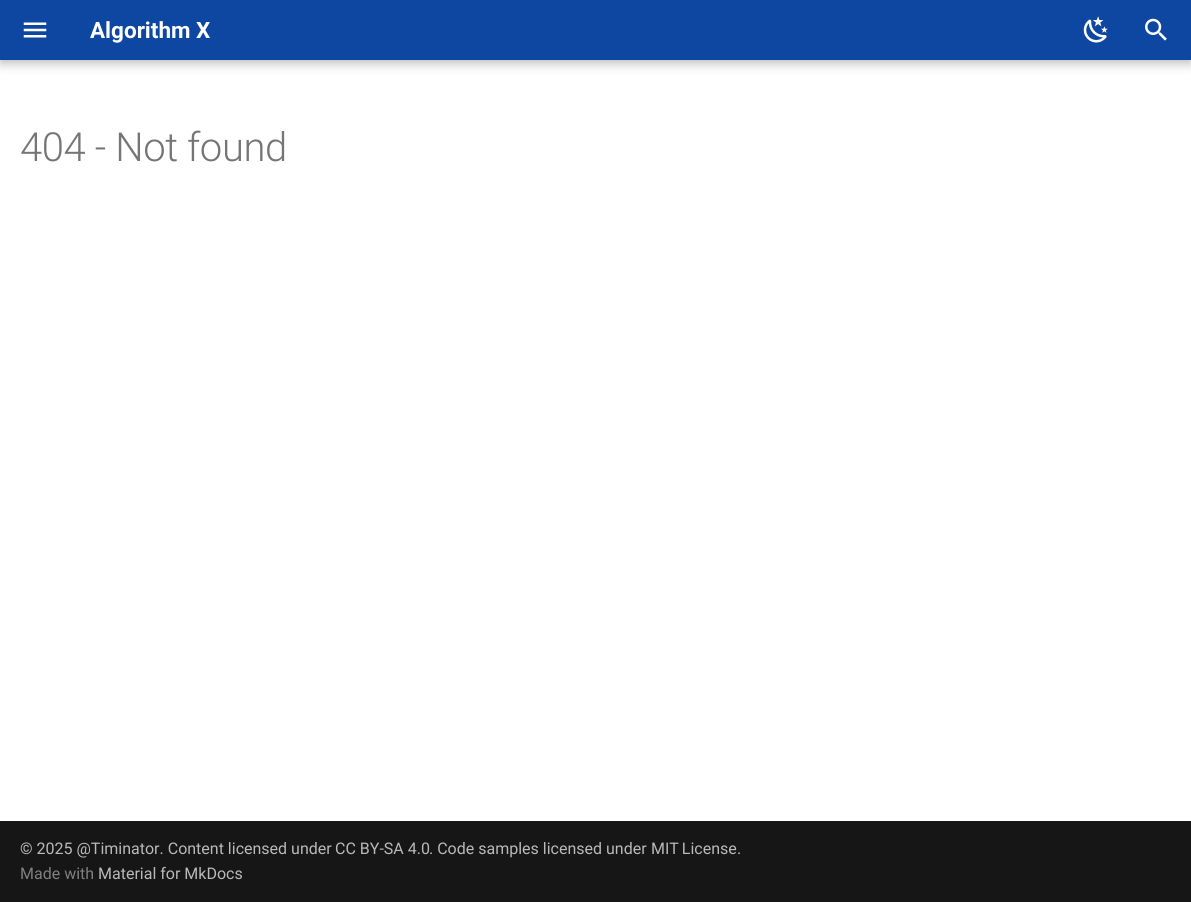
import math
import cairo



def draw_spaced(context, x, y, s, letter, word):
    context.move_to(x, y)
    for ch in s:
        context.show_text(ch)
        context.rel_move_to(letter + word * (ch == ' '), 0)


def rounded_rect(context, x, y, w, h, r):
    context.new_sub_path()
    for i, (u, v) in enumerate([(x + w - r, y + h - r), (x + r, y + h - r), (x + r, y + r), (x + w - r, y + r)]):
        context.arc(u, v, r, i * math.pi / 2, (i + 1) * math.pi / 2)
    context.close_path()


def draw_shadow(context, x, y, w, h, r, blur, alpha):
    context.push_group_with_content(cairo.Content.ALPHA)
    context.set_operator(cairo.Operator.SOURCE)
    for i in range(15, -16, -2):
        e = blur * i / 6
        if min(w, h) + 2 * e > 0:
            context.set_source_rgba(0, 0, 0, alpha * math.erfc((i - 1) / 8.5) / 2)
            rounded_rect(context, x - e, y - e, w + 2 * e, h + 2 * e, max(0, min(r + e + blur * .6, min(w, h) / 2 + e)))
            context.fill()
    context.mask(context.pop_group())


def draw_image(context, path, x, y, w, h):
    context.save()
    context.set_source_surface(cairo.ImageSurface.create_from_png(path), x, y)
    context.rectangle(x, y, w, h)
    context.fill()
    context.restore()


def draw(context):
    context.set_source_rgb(1, 1, 1)
    context.paint()
    context.set_source_rgb(0, 0, 0)
    draw_shadow(context, 0, 5, 1191, 60, 0, 5, 0.2)
    draw_shadow(context, 0, 0, 1191, 60, 0, 2.5, 0.1)
    context.set_source_rgb(13 / 255, 71 / 255, 161 / 255)
    context.rectangle(0, 0, 1191, 60)
    context.fill()
    draw_image(context, "images/1.png", 23, 22, 24, 16)
    draw_image(context, "images/2.png", 1083, 16, 25, 27)
    draw_image(context, "images/3.png", 1145, 18, 22, 23)
    context.set_source_rgb(22 / 255, 22 / 255, 22 / 255)
    context.rectangle(0, 821, 1191, 81)
    context.fill()
    context.select_font_face("Roboto", cairo.FontSlant.NORMAL, cairo.FontWeight.BOLD)
    context.set_font_size(22.5)
    context.set_source_rgb(1, 1, 1)
    context.move_to(90, 38)
    context.show_text("Algorithm X")
    context.select_font_face("Roboto Light")
    context.set_font_size(40)
    context.set_source_rgb(117 / 255, 117 / 255, 117 / 255)
    draw_spaced(context, 20, 161, "404 - Not found", -0.4, 0)
    context.select_font_face("Roboto")
    context.set_font_size(16)
    context.set_source_rgb(185 / 255, 185 / 255, 185 / 255)
    context.move_to(20, 854)
    context.show_text("© 2025 @Timinator. Content licensed under")
    context.move_to(335, 854)
    context.show_text("CC BY-SA 4.0")
    context.move_to(429, 854)
    context.show_text(". Code samples licensed under")
    draw_spaced(context, 651, 854, "MIT License", 0, -1)
    context.move_to(737, 854)
    context.show_text(".")
    context.set_source_rgb(127 / 255, 127 / 255, 127 / 255)
    context.move_to(20, 879)
    context.show_text("Made with")
    context.set_source_rgb(185 / 255, 185 / 255, 185 / 255)
    context.move_to(98, 879)
    context.show_text("Material for MkDocs")


surface = cairo.ImageSurface(cairo.Format.RGB24, 1191, 902)
context = cairo.Context(surface)
options = cairo.FontOptions()
options.set_hint_metrics(cairo.HintMetrics.OFF)
options.set_hint_style(cairo.HintStyle.NONE)
context.set_font_options(options)
context.set_miter_limit(4)
draw(context)
surface.write_to_png("out.png")
